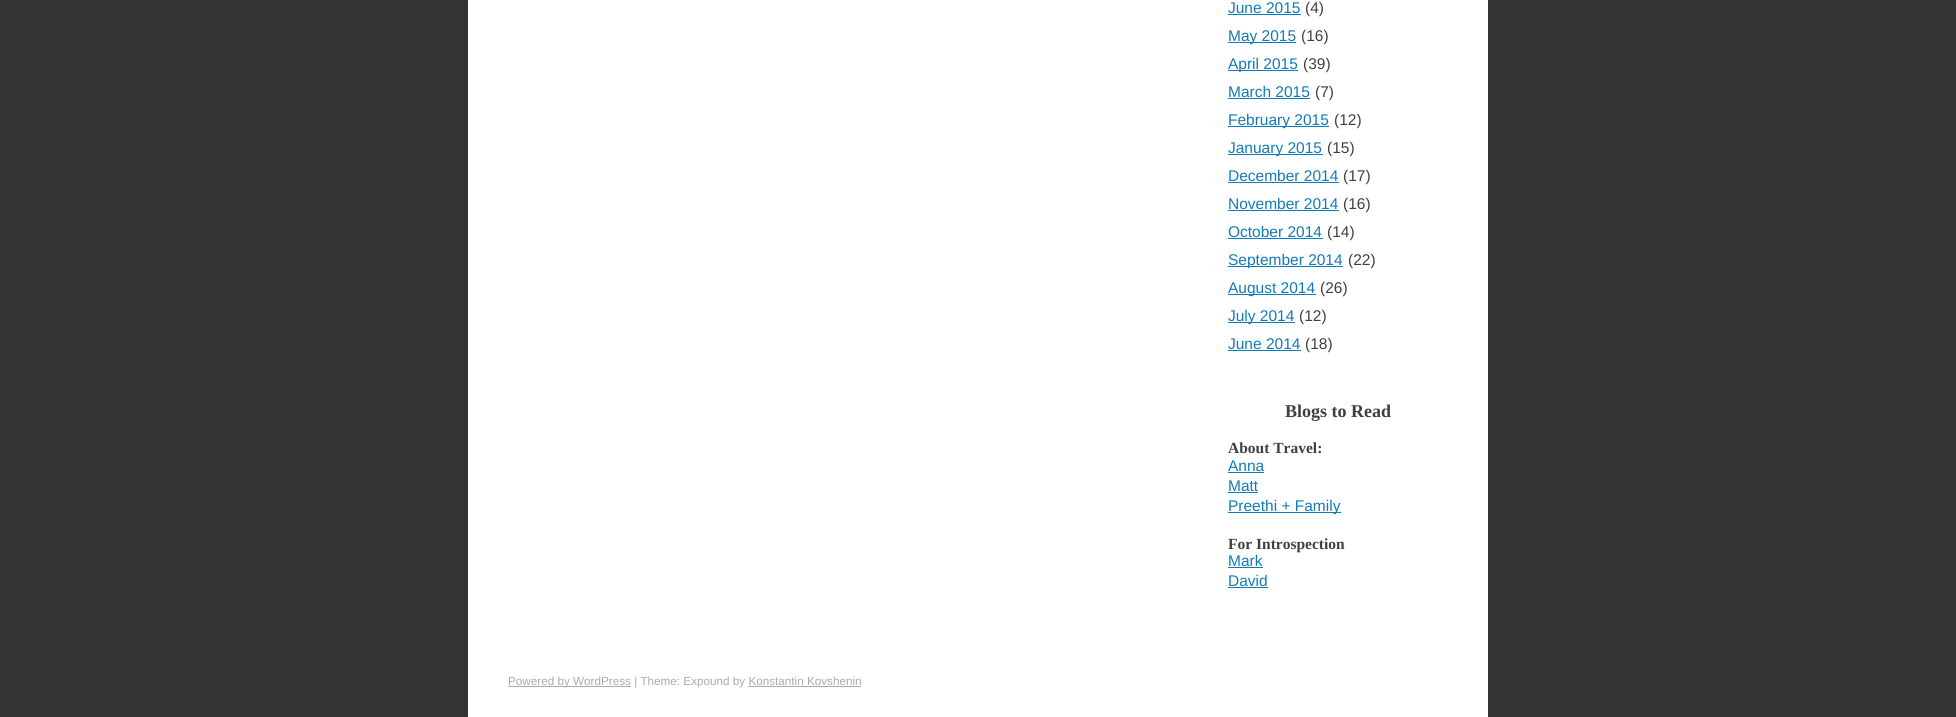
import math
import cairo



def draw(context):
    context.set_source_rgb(51 / 255, 51 / 255, 51 / 255)
    context.paint()
    context.set_source_rgb(1, 1, 1)
    context.rectangle(468, 0, 1020, 717)
    context.fill()
    context.set_source_rgb(17 / 255, 123 / 255, 184 / 255)
    context.rectangle(1228, 14, 73, 1)
    context.fill()
    context.rectangle(1228, 42, 68, 1)
    context.fill()
    context.rectangle(1228, 70, 70, 1)
    context.fill()
    context.rectangle(1228, 98, 82, 1)
    context.fill()
    context.rectangle(1228, 126, 101, 1)
    context.fill()
    context.rectangle(1228, 154, 95, 1)
    context.fill()
    context.rectangle(1228, 182, 111, 1)
    context.fill()
    context.rectangle(1228, 210, 111, 1)
    context.fill()
    context.rectangle(1228, 238, 95, 1)
    context.fill()
    context.rectangle(1228, 266, 115, 1)
    context.fill()
    context.rectangle(1228, 294, 88, 1)
    context.fill()
    context.rectangle(1228, 322, 67, 1)
    context.fill()
    context.rectangle(1228, 350, 73, 1)
    context.fill()
    context.rectangle(1228, 472, 36, 1)
    context.fill()
    context.rectangle(1228, 492, 30, 1)
    context.fill()
    context.rectangle(1228, 512, 113, 1)
    context.fill()
    context.rectangle(1228, 567, 35, 1)
    context.fill()
    context.rectangle(1228, 587, 40, 1)
    context.fill()
    context.set_source_rgb(170 / 255, 170 / 255, 170 / 255)
    context.rectangle(508, 686, 123, 1)
    context.fill()
    context.rectangle(748, 686, 113, 1)
    context.fill()
    context.select_font_face("Liberation Sans")
    context.set_font_size(15.5)
    context.set_source_rgb(17 / 255, 123 / 255, 184 / 255)
    context.move_to(1228, 13)
    context.show_text("June 2015")
    context.set_source_rgb(64 / 255, 64 / 255, 64 / 255)
    context.move_to(1305, 13)
    context.show_text("(4)")
    context.set_source_rgb(17 / 255, 123 / 255, 184 / 255)
    context.move_to(1228, 41)
    context.show_text("May 2015")
    context.set_source_rgb(64 / 255, 64 / 255, 64 / 255)
    context.move_to(1301, 41)
    context.show_text("(16)")
    context.set_source_rgb(17 / 255, 123 / 255, 184 / 255)
    context.move_to(1228, 69)
    context.show_text("April 2015")
    context.set_source_rgb(64 / 255, 64 / 255, 64 / 255)
    context.move_to(1303, 69)
    context.show_text("(39)")
    context.set_source_rgb(17 / 255, 123 / 255, 184 / 255)
    context.move_to(1228, 97)
    context.show_text("March 2015")
    context.set_source_rgb(64 / 255, 64 / 255, 64 / 255)
    context.move_to(1315, 97)
    context.show_text("(7)")
    context.set_source_rgb(17 / 255, 123 / 255, 184 / 255)
    context.move_to(1228, 125)
    context.show_text("February 2015")
    context.set_source_rgb(64 / 255, 64 / 255, 64 / 255)
    context.move_to(1334, 125)
    context.show_text("(12)")
    context.set_source_rgb(17 / 255, 123 / 255, 184 / 255)
    context.move_to(1228, 153)
    context.show_text("January 2015")
    context.set_source_rgb(64 / 255, 64 / 255, 64 / 255)
    context.move_to(1327, 153)
    context.show_text("(15)")
    context.set_source_rgb(17 / 255, 123 / 255, 184 / 255)
    context.move_to(1228, 181)
    context.show_text("December 2014")
    context.set_source_rgb(64 / 255, 64 / 255, 64 / 255)
    context.move_to(1343, 181)
    context.show_text("(17)")
    context.set_source_rgb(17 / 255, 123 / 255, 184 / 255)
    context.move_to(1228, 209)
    context.show_text("November 2014")
    context.set_source_rgb(64 / 255, 64 / 255, 64 / 255)
    context.move_to(1343, 209)
    context.show_text("(16)")
    context.set_source_rgb(17 / 255, 123 / 255, 184 / 255)
    context.move_to(1228, 237)
    context.show_text("October 2014")
    context.set_source_rgb(64 / 255, 64 / 255, 64 / 255)
    context.move_to(1327, 237)
    context.show_text("(14)")
    context.set_source_rgb(17 / 255, 123 / 255, 184 / 255)
    context.move_to(1228, 265)
    context.show_text("September 2014")
    context.set_source_rgb(64 / 255, 64 / 255, 64 / 255)
    context.move_to(1348, 265)
    context.show_text("(22)")
    context.set_source_rgb(17 / 255, 123 / 255, 184 / 255)
    context.move_to(1228, 293)
    context.show_text("August 2014")
    context.set_source_rgb(64 / 255, 64 / 255, 64 / 255)
    context.move_to(1320, 293)
    context.show_text("(26)")
    context.set_source_rgb(17 / 255, 123 / 255, 184 / 255)
    context.move_to(1228, 321)
    context.show_text("July 2014")
    context.set_source_rgb(64 / 255, 64 / 255, 64 / 255)
    context.move_to(1299, 321)
    context.show_text("(12)")
    context.set_source_rgb(17 / 255, 123 / 255, 184 / 255)
    context.move_to(1228, 349)
    context.show_text("June 2014")
    context.set_source_rgb(64 / 255, 64 / 255, 64 / 255)
    context.move_to(1305, 349)
    context.show_text("(18)")
    context.select_font_face("Liberation Serif", cairo.FontSlant.NORMAL, cairo.FontWeight.BOLD)
    context.set_font_size(18)
    context.move_to(1285, 417)
    context.show_text("Blogs to Read")
    context.set_font_size(15.5)
    context.move_to(1228, 453)
    context.show_text("About Travel:")
    context.select_font_face("Liberation Sans")
    context.set_source_rgb(17 / 255, 123 / 255, 184 / 255)
    context.move_to(1228, 471)
    context.show_text("Anna")
    context.move_to(1228, 491)
    context.show_text("Matt")
    context.move_to(1228, 511)
    context.show_text("Preethi + Family")
    context.select_font_face("Liberation Serif", cairo.FontSlant.NORMAL, cairo.FontWeight.BOLD)
    context.set_source_rgb(64 / 255, 64 / 255, 64 / 255)
    context.move_to(1228, 549)
    context.show_text("For Introspection")
    context.select_font_face("Liberation Sans")
    context.set_source_rgb(17 / 255, 123 / 255, 184 / 255)
    context.move_to(1228, 566)
    context.show_text("Mark")
    context.move_to(1228, 586)
    context.show_text("David")
    context.set_font_size(11.7)
    context.set_source_rgb(170 / 255, 170 / 255, 170 / 255)
    context.move_to(508, 685)
    context.show_text("Powered by WordPress | Theme: Expound by Konstantin Kovshenin")


surface = cairo.ImageSurface(cairo.Format.RGB24, 1956, 717)
context = cairo.Context(surface)
options = cairo.FontOptions()
options.set_hint_metrics(cairo.HintMetrics.OFF)
options.set_hint_style(cairo.HintStyle.NONE)
context.set_font_options(options)
context.set_miter_limit(4)
draw(context)
surface.write_to_png("out.png")
